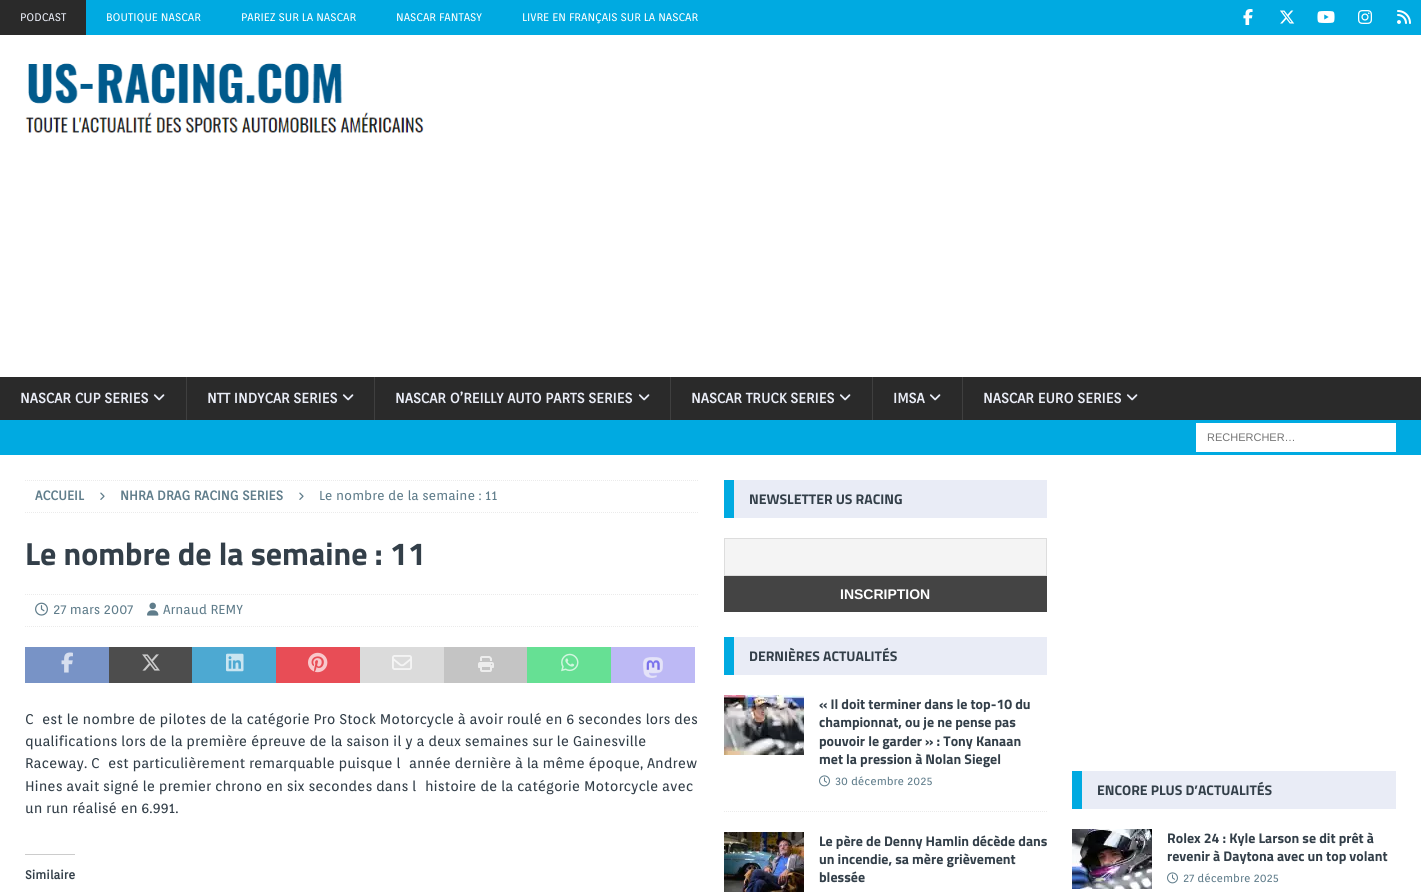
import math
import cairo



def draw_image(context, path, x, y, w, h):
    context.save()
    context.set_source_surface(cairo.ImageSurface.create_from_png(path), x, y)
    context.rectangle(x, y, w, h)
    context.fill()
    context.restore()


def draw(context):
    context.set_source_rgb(0, 170 / 255, 225 / 255)
    context.paint()
    context.set_source_rgb(42 / 255, 42 / 255, 42 / 255)
    context.rectangle(0, 0, 86, 35)
    context.fill()
    draw_image(context, "images/1.png", 1243, 9, 10, 16)
    draw_image(context, "images/2.png", 1280, 10, 15, 14)
    draw_image(context, "images/3.png", 1317, 11, 18, 12)
    draw_image(context, "images/4.png", 1358, 10, 14, 14)
    draw_image(context, "images/5.png", 1397, 10, 14, 14)
    context.set_source_rgb(1, 1, 1)
    context.rectangle(0, 35, 1421, 342)
    context.fill()
    draw_image(context, "images/6.png", 25, 63, 399, 70)
    context.set_source_rgb(42 / 255, 42 / 255, 42 / 255)
    context.rectangle(0, 377, 1421, 43)
    context.fill()
    draw_image(context, "images/7.png", 153, 394, 12, 7)
    context.set_source_rgb(63 / 255, 63 / 255, 63 / 255)
    context.rectangle(186, 377, 1, 43)
    context.fill()
    draw_image(context, "images/7.png", 342, 394, 12, 7)
    context.rectangle(374, 377, 1, 43)
    context.fill()
    draw_image(context, "images/7.png", 638, 394, 12, 7)
    context.rectangle(670, 377, 1, 43)
    context.fill()
    draw_image(context, "images/7.png", 839, 394, 12, 7)
    context.rectangle(872, 377, 1, 43)
    context.fill()
    draw_image(context, "images/7.png", 929, 394, 12, 7)
    context.rectangle(962, 377, 1, 43)
    context.fill()
    draw_image(context, "images/7.png", 1126, 394, 12, 7)
    context.set_source_rgb(1, 1, 1)
    context.rectangle(1196, 423, 200, 29)
    context.fill()
    context.rectangle(0, 455, 1421, 437)
    context.fill()
    context.new_path()
    context.move_to(25, 480.5)
    context.line_to(698, 480.5)
    context.set_source_rgb(235 / 255, 235 / 255, 235 / 255)
    context.set_line_width(1)
    context.set_dash([1, 1])
    context.stroke()
    context.new_path()
    context.move_to(25, 512.5)
    context.line_to(698, 512.5)
    context.stroke()
    draw_image(context, "images/8.png", 100, 492, 5, 8)
    draw_image(context, "images/8.png", 299, 492, 5, 8)
    context.new_path()
    context.move_to(25, 594.5)
    context.line_to(698, 594.5)
    context.stroke()
    context.new_path()
    context.move_to(25, 626.5)
    context.line_to(698, 626.5)
    context.stroke()
    draw_image(context, "images/9.png", 35, 602, 13, 14)
    draw_image(context, "images/10.png", 147, 602, 12, 14)
    context.set_source_rgb(120 / 255, 147 / 255, 198 / 255)
    context.rectangle(25, 647, 84, 36)
    context.fill()
    draw_image(context, "images/11.png", 61, 652, 12, 21)
    context.set_source_rgb(77 / 255, 77 / 255, 77 / 255)
    context.rectangle(109, 647, 83, 36)
    context.fill()
    draw_image(context, "images/12.png", 142, 654, 18, 17)
    context.set_source_rgb(77 / 255, 169 / 255, 210 / 255)
    context.rectangle(192, 647, 84, 36)
    context.fill()
    draw_image(context, "images/13.png", 226, 653, 18, 19)
    context.set_source_rgb(232 / 255, 77 / 255, 86 / 255)
    context.rectangle(276, 647, 84, 36)
    context.fill()
    draw_image(context, "images/14.png", 308, 652, 20, 21)
    context.set_source_rgb(219 / 255, 219 / 255, 219 / 255)
    context.rectangle(360, 647, 84, 36)
    context.fill()
    draw_image(context, "images/15.png", 392, 655, 20, 15)
    context.set_source_rgb(196 / 255, 196 / 255, 196 / 255)
    context.rectangle(444, 647, 83, 36)
    context.fill()
    draw_image(context, "images/16.png", 478, 656, 16, 16)
    context.set_source_rgb(102 / 255, 224 / 255, 148 / 255)
    context.rectangle(527, 647, 84, 36)
    context.fill()
    draw_image(context, "images/17.png", 561, 653, 18, 19)
    context.set_source_rgb(189 / 255, 185 / 255, 245 / 255)
    context.rectangle(611, 647, 84, 36)
    context.fill()
    draw_image(context, "images/18.png", 643, 657, 20, 21)
    context.set_source_rgb(204 / 255, 204 / 255, 204 / 255)
    context.rectangle(25, 854, 50, 1)
    context.fill()
    context.set_source_rgb(233 / 255, 236 / 255, 246 / 255)
    context.rectangle(734, 480, 313, 38)
    context.fill()
    context.set_source_rgb(0, 170 / 255, 225 / 255)
    context.rectangle(724, 480, 10, 38)
    context.fill()
    context.set_source_rgb(244 / 255, 244 / 255, 244 / 255)
    context.rectangle(724.5, 538.5, 322, 37)
    context.fill_preserve()
    context.set_source_rgb(221 / 255, 221 / 255, 221 / 255)
    context.set_dash([])
    context.stroke()
    context.set_source_rgb(68 / 255, 68 / 255, 68 / 255)
    context.rectangle(724, 576, 323, 36)
    context.fill()
    context.set_source_rgb(233 / 255, 236 / 255, 246 / 255)
    context.rectangle(734, 637, 313, 38)
    context.fill()
    context.set_source_rgb(0, 170 / 255, 225 / 255)
    context.rectangle(724, 637, 10, 38)
    context.fill()
    context.new_path()
    context.move_to(724, 811.5)
    context.line_to(1047, 811.5)
    context.set_source_rgb(235 / 255, 235 / 255, 235 / 255)
    context.set_dash([1, 1])
    context.stroke()
    draw_image(context, "images/19.png", 724, 695, 80, 60)
    draw_image(context, "images/20.png", 819, 775, 11, 12)
    draw_image(context, "images/21.png", 724, 832, 80, 60)
    context.set_source_rgb(233 / 255, 236 / 255, 246 / 255)
    context.rectangle(1082, 771, 314, 38)
    context.fill()
    context.set_source_rgb(0, 170 / 255, 225 / 255)
    context.rectangle(1072, 771, 10, 38)
    context.fill()
    draw_image(context, "images/22.png", 1072, 829, 80, 60)
    draw_image(context, "images/20.png", 1167, 872, 11, 12)
    context.select_font_face("Orienta")
    context.set_font_size(11)
    context.set_source_rgb(233 / 255, 236 / 255, 246 / 255)
    context.move_to(20, 21)
    context.show_text("PODCAST")
    context.set_source_rgb(1, 1, 1)
    context.move_to(106, 21)
    context.show_text("BOUTIQUE NASCAR")
    context.move_to(241, 21)
    context.show_text("PARIEZ SUR LA NASCAR")
    context.move_to(396, 21)
    context.show_text("NASCAR FANTASY")
    context.move_to(522, 21)
    context.show_text("LIVRE EN FRANÇAIS SUR LA NASCAR")
    context.select_font_face("Orienta", cairo.FontSlant.NORMAL, cairo.FontWeight.BOLD)
    context.set_font_size(14)
    context.set_source_rgb(233 / 255, 236 / 255, 246 / 255)
    context.move_to(20, 403)
    context.show_text("NASCAR CUP SERIES")
    context.move_to(207, 403)
    context.show_text("NTT INDYCAR SERIES")
    context.move_to(395, 403)
    context.show_text("NASCAR O’REILLY AUTO PARTS SERIES")
    context.move_to(691, 403)
    context.show_text("NASCAR TRUCK SERIES")
    context.move_to(893, 403)
    context.show_text("IMSA")
    context.move_to(983, 403)
    context.show_text("NASCAR EURO SERIES")
    context.select_font_face("Liberation Sans")
    context.set_font_size(11)
    context.set_source_rgb(117 / 255, 117 / 255, 117 / 255)
    context.move_to(1207, 441)
    context.show_text("RECHERCHER…")
    context.select_font_face("Orienta", cairo.FontSlant.NORMAL, cairo.FontWeight.BOLD)
    context.set_font_size(13)
    context.set_source_rgb(96 / 255, 125 / 255, 139 / 255)
    context.move_to(35, 500)
    context.show_text("ACCUEIL")
    context.move_to(120, 500)
    context.show_text("NHRA DRAG RACING SERIES")
    context.select_font_face("Orienta")
    context.move_to(319, 500)
    context.show_text("Le nombre de la semaine : 11")
    context.select_font_face("Titillium Web", cairo.FontSlant.NORMAL, cairo.FontWeight.BOLD)
    context.set_font_size(32)
    context.set_source_rgb(51 / 255, 63 / 255, 73 / 255)
    context.move_to(25, 565)
    context.show_text("Le nombre de la semaine : 11")
    context.select_font_face("Orienta")
    context.set_font_size(13)
    context.set_source_rgb(96 / 255, 125 / 255, 139 / 255)
    context.move_to(53, 614)
    context.show_text("27 mars 2007")
    context.move_to(163, 614)
    context.show_text("Arnaud REMY")
    context.set_font_size(14)
    context.set_source_rgb(51 / 255, 63 / 255, 73 / 255)
    context.move_to(25, 724)
    context.show_text("C")
    context.move_to(42, 724)
    context.show_text("est le nombre de pilotes de la catégorie Pro Stock Motorcycle à avoir roulé en 6 secondes lors des")
    context.move_to(25, 746)
    context.show_text("qualifications lors de la première épreuve de la saison il y a deux semaines sur le Gainesville")
    context.move_to(25, 768)
    context.show_text("Raceway. C")
    context.move_to(108, 768)
    context.show_text("est particulièrement remarquable puisque l")
    context.move_to(409, 768)
    context.show_text("année dernière à la même époque, Andrew")
    context.move_to(25, 791)
    context.show_text("Hines avait signé le premier chrono en six secondes dans l")
    context.move_to(425, 791)
    context.show_text("histoire de la catégorie Motorcycle avec")
    context.move_to(25, 813)
    context.show_text("un run réalisé en 6.991.")
    context.select_font_face("Orienta", cairo.FontSlant.NORMAL, cairo.FontWeight.BOLD)
    context.set_font_size(12)
    context.move_to(25, 879)
    context.show_text("Similaire")
    context.select_font_face("Titillium Web", cairo.FontSlant.NORMAL, cairo.FontWeight.BOLD)
    context.set_font_size(14)
    context.move_to(749, 504)
    context.show_text("NEWSLETTER US RACING")
    context.select_font_face("Liberation Sans", cairo.FontSlant.NORMAL, cairo.FontWeight.BOLD)
    context.set_source_rgb(1, 1, 1)
    context.move_to(840, 599)
    context.show_text("INSCRIPTION")
    context.select_font_face("Titillium Web", cairo.FontSlant.NORMAL, cairo.FontWeight.BOLD)
    context.set_source_rgb(51 / 255, 63 / 255, 73 / 255)
    context.move_to(749, 661)
    context.show_text("DERNIÈRES ACTUALITÉS")
    context.move_to(819, 709)
    context.show_text("« Il doit terminer dans le top-10 du")
    context.move_to(819, 727)
    context.show_text("championnat, ou je ne pense pas")
    context.move_to(819, 746)
    context.show_text("pouvoir le garder » : Tony Kanaan")
    context.move_to(819, 764)
    context.show_text("met la pression à Nolan Siegel")
    context.select_font_face("Orienta")
    context.set_font_size(11)
    context.set_source_rgb(96 / 255, 125 / 255, 139 / 255)
    context.move_to(835, 785)
    context.show_text("30 décembre 2025")
    context.select_font_face("Titillium Web", cairo.FontSlant.NORMAL, cairo.FontWeight.BOLD)
    context.set_font_size(14)
    context.set_source_rgb(51 / 255, 63 / 255, 73 / 255)
    context.move_to(819, 846)
    context.show_text("Le père de Denny Hamlin décède dans")
    context.move_to(819, 864)
    context.show_text("un incendie, sa mère grièvement")
    context.move_to(819, 882)
    context.show_text("blessée")
    context.move_to(1097, 795)
    context.show_text("ENCORE PLUS D’ACTUALITÉS")
    context.move_to(1167, 843)
    context.show_text("Rolex 24 : Kyle Larson se dit prêt à")
    context.move_to(1167, 861)
    context.show_text("revenir à Daytona avec un top volant")
    context.select_font_face("Orienta")
    context.set_font_size(11)
    context.set_source_rgb(96 / 255, 125 / 255, 139 / 255)
    context.move_to(1183, 882)
    context.show_text("27 décembre 2025")


surface = cairo.ImageSurface(cairo.Format.RGB24, 1421, 892)
context = cairo.Context(surface)
options = cairo.FontOptions()
options.set_hint_metrics(cairo.HintMetrics.OFF)
options.set_hint_style(cairo.HintStyle.NONE)
context.set_font_options(options)
context.set_miter_limit(4)
draw(context)
surface.write_to_png("out.png")
